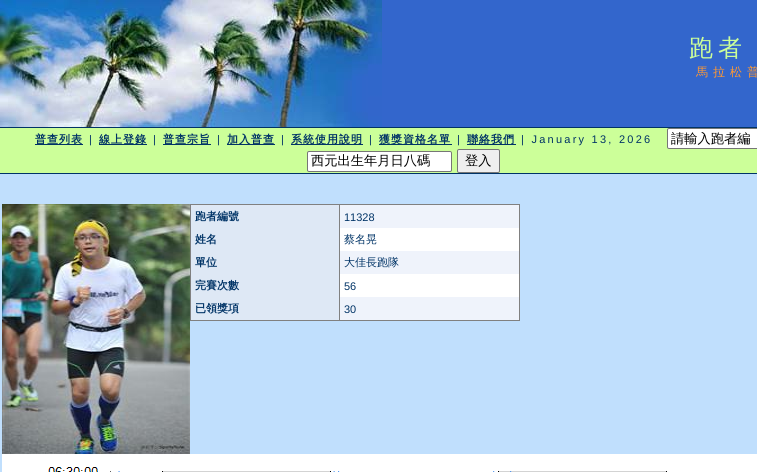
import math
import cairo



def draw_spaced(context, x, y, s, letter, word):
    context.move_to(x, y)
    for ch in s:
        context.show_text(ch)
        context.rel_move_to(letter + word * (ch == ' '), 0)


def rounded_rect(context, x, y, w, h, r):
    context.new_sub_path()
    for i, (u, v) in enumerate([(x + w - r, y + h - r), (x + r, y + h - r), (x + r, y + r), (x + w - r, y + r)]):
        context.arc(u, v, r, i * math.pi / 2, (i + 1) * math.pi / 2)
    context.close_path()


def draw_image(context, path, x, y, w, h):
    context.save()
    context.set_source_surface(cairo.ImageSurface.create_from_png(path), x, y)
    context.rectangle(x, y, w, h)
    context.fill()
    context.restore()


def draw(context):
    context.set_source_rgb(192 / 255, 223 / 255, 253 / 255)
    context.paint()
    context.set_source_rgb(51 / 255, 102 / 255, 204 / 255)
    context.rectangle(382, 0, 375, 127)
    context.fill()
    draw_image(context, "images/1.png", 0, 0, 382, 127)
    context.set_source_rgb(0, 51 / 255, 102 / 255)
    context.rectangle(0, 127, 757, 1)
    context.fill()
    context.set_source_rgb(204 / 255, 1, 153 / 255)
    context.rectangle(0, 128, 757, 45)
    context.fill()
    context.set_source_rgb(0, 51 / 255, 102 / 255)
    context.rectangle(35, 144, 48, 1)
    context.fill()
    context.rectangle(99, 144, 48, 1)
    context.fill()
    context.rectangle(163, 144, 48, 1)
    context.fill()
    context.rectangle(227, 144, 48, 1)
    context.fill()
    context.rectangle(291, 144, 72, 1)
    context.fill()
    context.rectangle(379, 144, 73, 1)
    context.fill()
    context.rectangle(467, 144, 49, 1)
    context.fill()
    context.set_source_rgb(1, 1, 1)
    rounded_rect(context, 667.5, 128.5, 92, 20, 1.5)
    context.fill_preserve()
    context.set_source_rgb(118 / 255, 118 / 255, 118 / 255)
    context.set_line_width(1)
    context.stroke()
    context.set_source_rgb(1, 1, 1)
    rounded_rect(context, 307.5, 151.5, 144, 20, 1.5)
    context.fill_preserve()
    context.set_source_rgb(118 / 255, 118 / 255, 118 / 255)
    context.stroke()
    context.set_source_rgb(239 / 255, 239 / 255, 239 / 255)
    rounded_rect(context, 457.5, 149.5, 42, 23, 1.5)
    context.fill_preserve()
    context.set_source_rgb(118 / 255, 118 / 255, 118 / 255)
    context.stroke()
    context.set_source_rgb(0, 51 / 255, 102 / 255)
    context.rectangle(0, 173, 757, 1)
    context.fill()
    draw_image(context, "images/2.png", 2, 204, 188, 250)
    context.set_source_rgb(128 / 255, 128 / 255, 128 / 255)
    context.rectangle(190, 204, 330, 1)
    context.fill()
    context.rectangle(519, 204, 1, 117)
    context.fill()
    context.rectangle(190, 320, 330, 1)
    context.fill()
    context.rectangle(190, 204, 1, 117)
    context.fill()
    context.set_source_rgb(239 / 255, 243 / 255, 251 / 255)
    context.rectangle(340, 205, 179, 23)
    context.fill()
    context.set_source_rgb(222 / 255, 232 / 255, 245 / 255)
    context.rectangle(191, 205, 148, 115)
    context.fill()
    context.set_source_rgb(1, 1, 1)
    context.rectangle(340, 228, 179, 23)
    context.fill()
    context.set_source_rgb(239 / 255, 243 / 255, 251 / 255)
    context.rectangle(340, 251, 179, 23)
    context.fill()
    context.set_source_rgb(1, 1, 1)
    context.rectangle(340, 274, 179, 23)
    context.fill()
    context.set_source_rgb(239 / 255, 243 / 255, 251 / 255)
    context.rectangle(340, 297, 179, 23)
    context.fill()
    context.set_source_rgb(128 / 255, 128 / 255, 128 / 255)
    context.rectangle(339, 204, 1, 117)
    context.fill()
    draw_image(context, "images/3.png", 2, 454, 755, 18)
    context.select_font_face("WenQuanYi Zen Hei Medium")
    context.set_font_size(24)
    context.set_source_rgb(204 / 255, 1, 153 / 255)
    draw_spaced(context, 689, 56, "跑者", 5, 0)
    context.set_font_size(12)
    context.set_source_rgb(1, 153 / 255, 51 / 255)
    draw_spaced(context, 696, 76, "馬拉松普", 5, 0)
    context.select_font_face("WenQuanYi Zen Hei", cairo.FontSlant.NORMAL, cairo.FontWeight.BOLD)
    context.set_font_size(11)
    context.set_source_rgb(0, 51 / 255, 102 / 255)
    draw_spaced(context, 35, 143, "普查列表", 1, 0)
    context.select_font_face("Liberation Sans")
    draw_spaced(context, 89, 143, "|", 2.25, 0)
    context.select_font_face("WenQuanYi Zen Hei", cairo.FontSlant.NORMAL, cairo.FontWeight.BOLD)
    draw_spaced(context, 99, 143, "線上登錄", 1, 0)
    context.select_font_face("Liberation Sans")
    draw_spaced(context, 153, 143, "|", 2.25, 0)
    context.select_font_face("WenQuanYi Zen Hei", cairo.FontSlant.NORMAL, cairo.FontWeight.BOLD)
    draw_spaced(context, 163, 143, "普查宗旨", 1, 0)
    context.select_font_face("Liberation Sans")
    draw_spaced(context, 217, 143, "|", 2.25, 0)
    context.select_font_face("WenQuanYi Zen Hei", cairo.FontSlant.NORMAL, cairo.FontWeight.BOLD)
    draw_spaced(context, 227, 143, "加入普查", 1, 0)
    context.select_font_face("Liberation Sans")
    draw_spaced(context, 281, 143, "|", 2.25, 0)
    context.select_font_face("WenQuanYi Zen Hei", cairo.FontSlant.NORMAL, cairo.FontWeight.BOLD)
    draw_spaced(context, 291, 143, "系統使用說明", 1, 0)
    context.select_font_face("Liberation Sans")
    draw_spaced(context, 369, 143, "|", 2.25, 0)
    context.select_font_face("WenQuanYi Zen Hei", cairo.FontSlant.NORMAL, cairo.FontWeight.BOLD)
    draw_spaced(context, 379, 143, "獲獎資格名單", 1, 0)
    context.select_font_face("Liberation Sans")
    draw_spaced(context, 457, 143, "|", 2.25, 0)
    context.select_font_face("WenQuanYi Zen Hei", cairo.FontSlant.NORMAL, cairo.FontWeight.BOLD)
    draw_spaced(context, 467, 143, "聯絡我們", 1, 0)
    context.select_font_face("Liberation Sans")
    draw_spaced(context, 521, 143, "| January 13, 2026", 2.25, 0)
    context.select_font_face("WenQuanYi Zen Hei Medium")
    context.set_font_size(13.25)
    context.set_source_rgb(0, 0, 0)
    context.move_to(671, 143)
    context.show_text("請輸入跑者編")
    context.move_to(311, 165)
    context.show_text("西元出生年月日八碼")
    context.move_to(465, 165)
    context.show_text("登入")
    context.select_font_face("WenQuanYi Zen Hei", cairo.FontSlant.NORMAL, cairo.FontWeight.BOLD)
    context.set_font_size(11)
    context.set_source_rgb(0, 51 / 255, 102 / 255)
    context.move_to(195, 220)
    context.show_text("跑者編號")
    context.select_font_face("Liberation Sans")
    context.move_to(344, 221)
    context.show_text("11328")
    context.select_font_face("WenQuanYi Zen Hei", cairo.FontSlant.NORMAL, cairo.FontWeight.BOLD)
    context.move_to(195, 243)
    context.show_text("姓名")
    context.select_font_face("WenQuanYi Zen Hei Medium")
    context.move_to(344, 243)
    context.show_text("蔡名晃")
    context.select_font_face("WenQuanYi Zen Hei", cairo.FontSlant.NORMAL, cairo.FontWeight.BOLD)
    context.move_to(195, 266)
    context.show_text("單位")
    context.select_font_face("WenQuanYi Zen Hei Medium")
    context.move_to(344, 266)
    context.show_text("大佳長跑隊")
    context.select_font_face("WenQuanYi Zen Hei", cairo.FontSlant.NORMAL, cairo.FontWeight.BOLD)
    context.move_to(195, 289)
    context.show_text("完賽次數")
    context.select_font_face("Liberation Sans")
    context.move_to(344, 290)
    context.show_text("56")
    context.select_font_face("WenQuanYi Zen Hei", cairo.FontSlant.NORMAL, cairo.FontWeight.BOLD)
    context.move_to(195, 312)
    context.show_text("已領獎項")
    context.select_font_face("Liberation Sans")
    context.move_to(344, 313)
    context.show_text("30")


surface = cairo.ImageSurface(cairo.Format.RGB24, 757, 472)
context = cairo.Context(surface)
options = cairo.FontOptions()
options.set_hint_metrics(cairo.HintMetrics.OFF)
options.set_hint_style(cairo.HintStyle.NONE)
context.set_font_options(options)
context.set_miter_limit(4)
draw(context)
surface.write_to_png("out.png")
